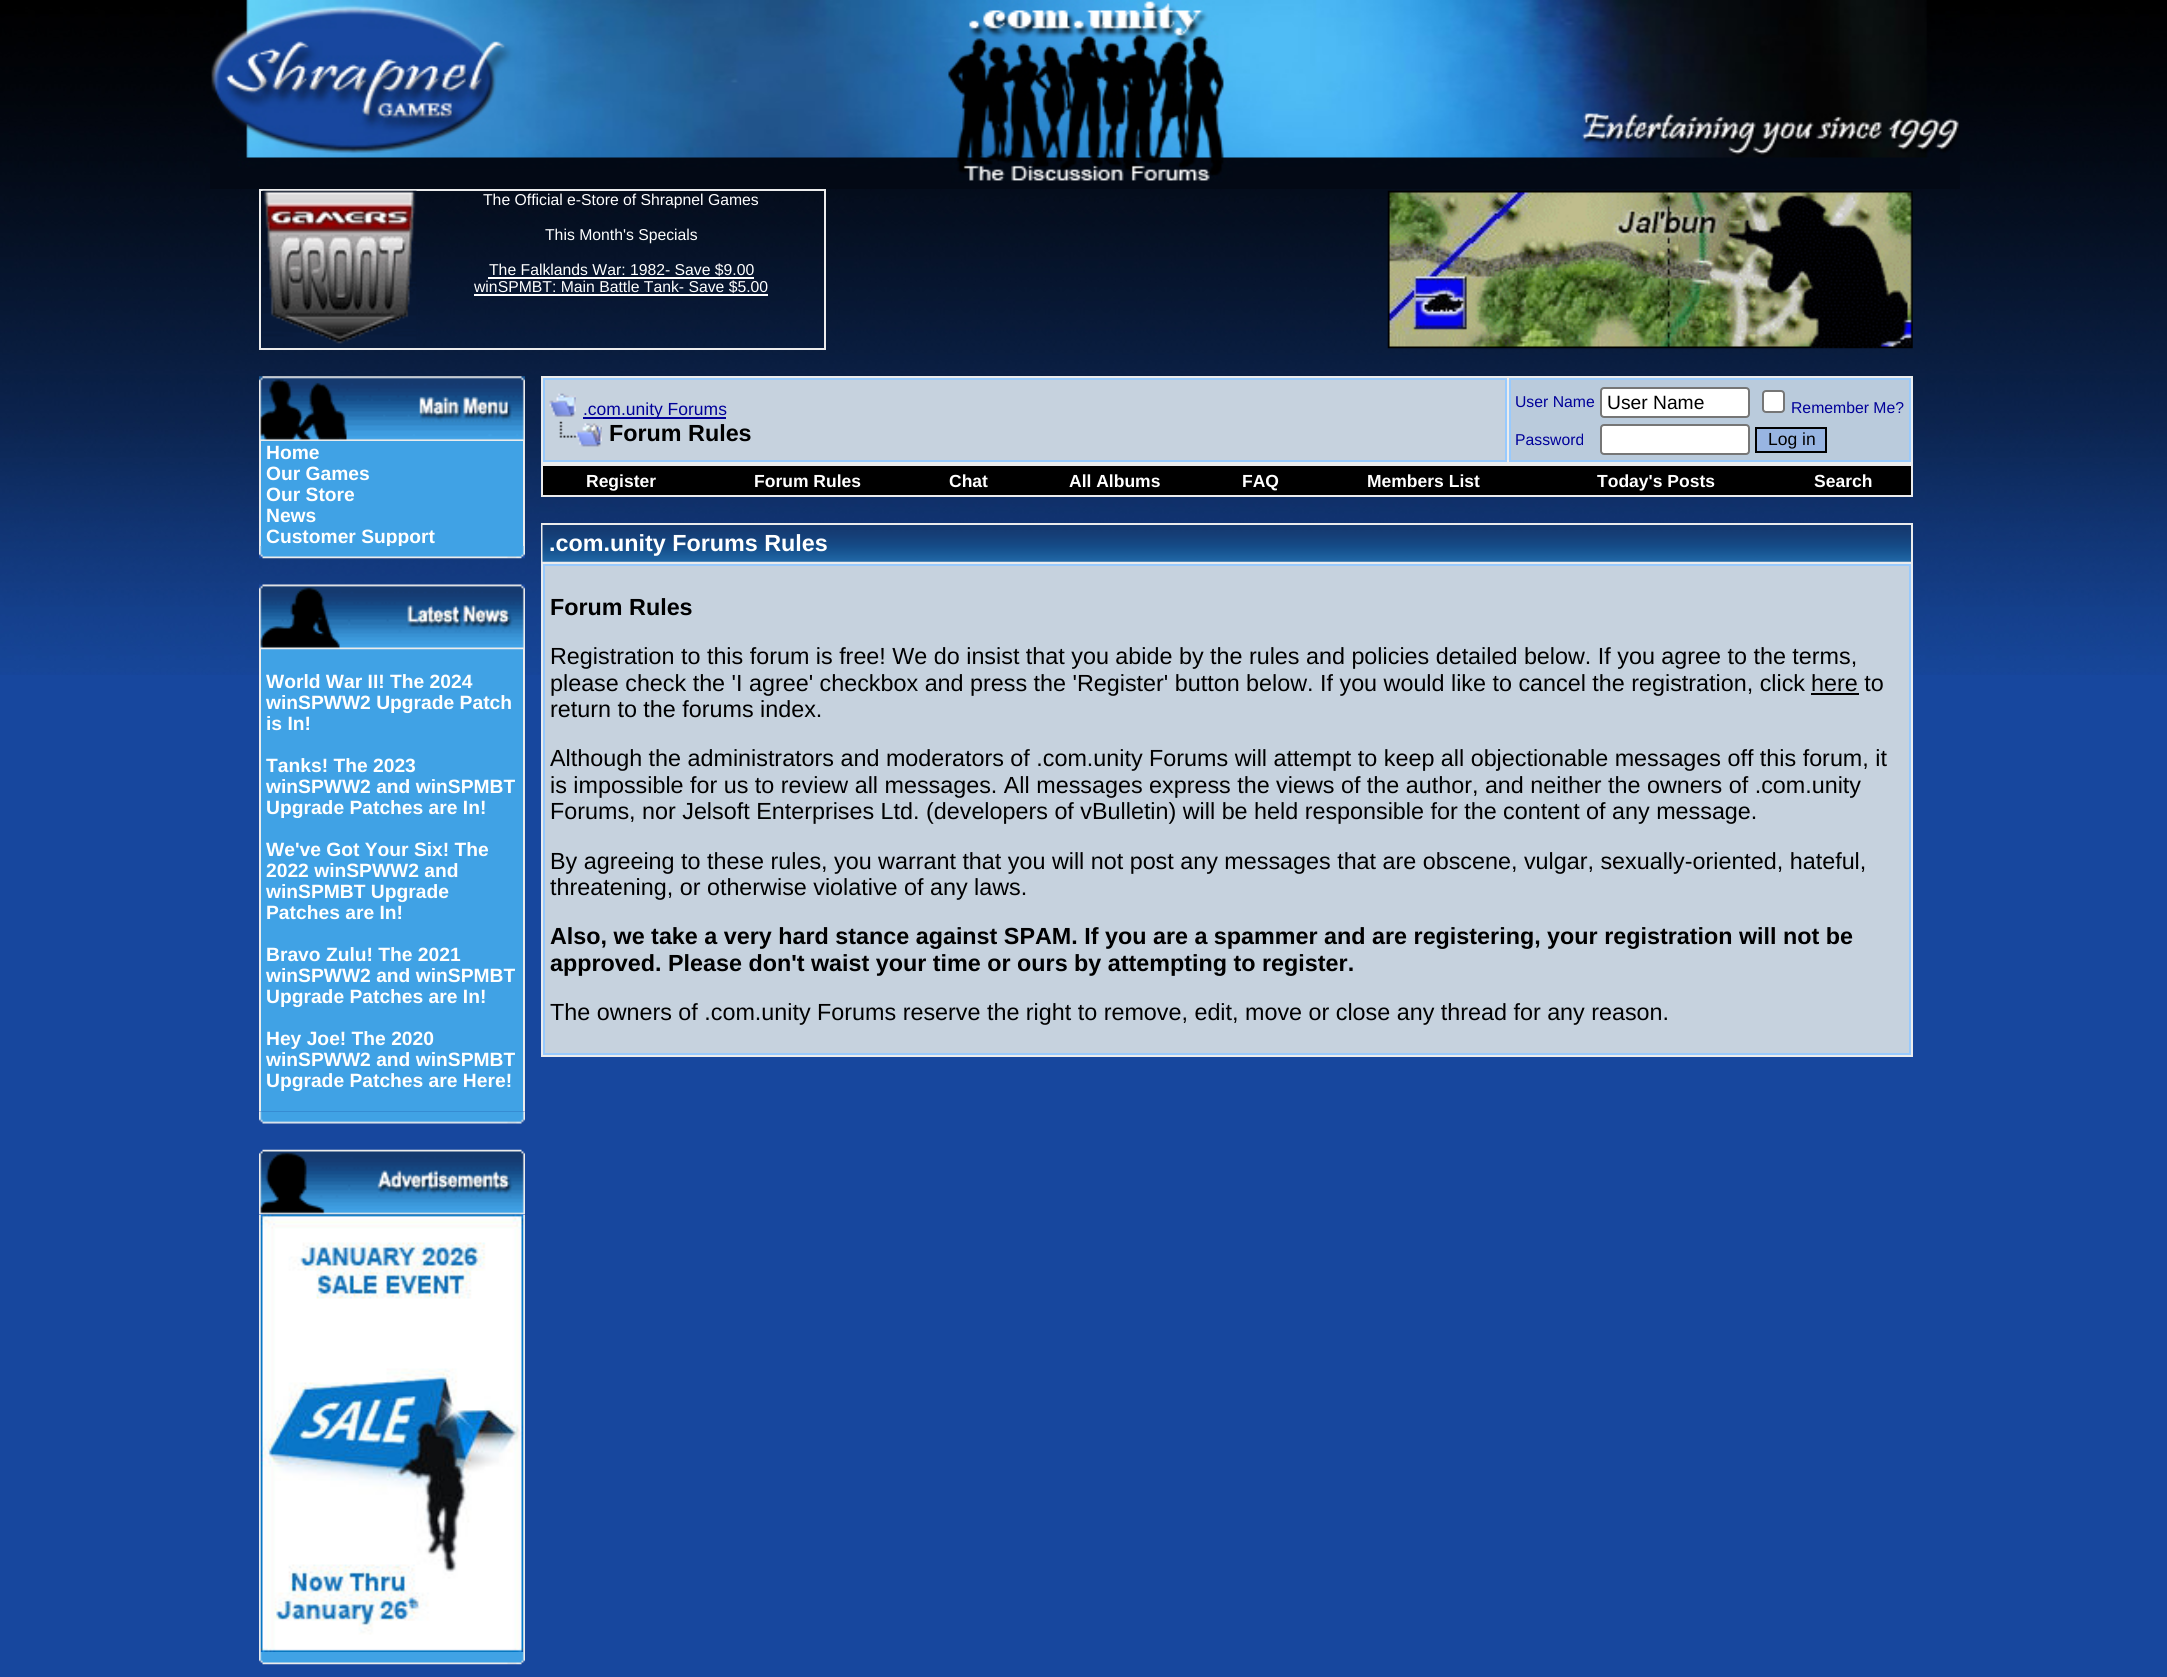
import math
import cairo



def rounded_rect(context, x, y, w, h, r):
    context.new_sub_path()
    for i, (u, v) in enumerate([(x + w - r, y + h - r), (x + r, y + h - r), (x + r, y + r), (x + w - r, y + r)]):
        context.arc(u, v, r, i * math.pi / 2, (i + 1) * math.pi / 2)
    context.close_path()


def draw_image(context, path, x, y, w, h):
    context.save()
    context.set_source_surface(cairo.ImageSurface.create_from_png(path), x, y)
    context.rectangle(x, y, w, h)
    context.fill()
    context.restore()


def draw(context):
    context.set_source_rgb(23 / 255, 71 / 255, 158 / 255)
    context.paint()
    draw_image(context, "images/1.png", 0, 0, 2167, 675)
    draw_image(context, "images/2.png", 210, 0, 1750, 189)
    context.set_source_rgb(236 / 255, 236 / 255, 236 / 255)
    context.rectangle(259, 189, 567, 2)
    context.fill()
    context.rectangle(259, 348, 159, 2)
    context.fill()
    context.rectangle(259, 189, 2, 161)
    context.fill()
    draw_image(context, "images/3.png", 262, 190, 155, 154)
    draw_image(context, "images/4.png", 1387, 190, 526, 159)
    context.rectangle(824, 189, 2, 161)
    context.fill()
    context.rectangle(418, 348, 408, 2)
    context.fill()
    context.set_source_rgb(1, 1, 1)
    context.rectangle(488, 277, 266, 2)
    context.fill()
    context.rectangle(474, 294, 294, 2)
    context.fill()
    draw_image(context, "images/5.png", 259, 376, 266, 65)
    context.set_source_rgb(64 / 255, 162 / 255, 229 / 255)
    context.rectangle(261, 441, 262, 105)
    context.fill()
    context.set_source_rgb(236 / 255, 236 / 255, 236 / 255)
    context.rectangle(523, 441, 2, 105)
    context.fill()
    context.rectangle(259, 441, 2, 105)
    context.fill()
    context.set_source_rgb(64 / 255, 162 / 255, 229 / 255)
    context.rectangle(261, 649, 262, 462)
    context.fill()
    context.set_source_rgb(236 / 255, 236 / 255, 236 / 255)
    context.rectangle(523, 649, 2, 462)
    context.fill()
    context.rectangle(259, 649, 2, 462)
    context.fill()
    draw_image(context, "images/7.png", 259, 584, 266, 66)
    draw_image(context, "images/8.png", 259, 1111, 266, 13)
    draw_image(context, "images/9.png", 259, 1149, 266, 66)
    context.rectangle(523, 1215, 2, 437)
    context.fill()
    context.rectangle(259, 1215, 2, 437)
    context.fill()
    draw_image(context, "images/10.png", 260, 1214, 264, 438)
    draw_image(context, "images/11.png", 259, 1652, 266, 13)
    context.rectangle(541, 376, 1372, 121)
    context.fill()
    context.set_source_rgb(198 / 255, 210 / 255, 222 / 255)
    context.rectangle(544, 379, 962, 82)
    context.fill_preserve()
    context.set_source_rgb(152 / 255, 202 / 255, 253 / 255)
    context.stroke()
    draw_image(context, "images/12.png", 549, 393, 27, 24)
    context.set_source_rgb(0, 0, 153 / 255)
    context.rectangle(583, 417, 143, 2)
    context.fill()
    draw_image(context, "images/13.png", 559, 421, 43, 26)
    context.set_source_rgb(186 / 255, 203 / 255, 220 / 255)
    context.rectangle(1510, 379, 400, 82)
    context.fill_preserve()
    context.set_source_rgb(152 / 255, 202 / 255, 253 / 255)
    context.stroke()
    context.set_source_rgb(1, 1, 1)
    rounded_rect(context, 1601, 388, 148, 29, 3)
    context.fill_preserve()
    context.set_source_rgb(118 / 255, 118 / 255, 118 / 255)
    context.stroke()
    context.set_source_rgb(1, 1, 1)
    rounded_rect(context, 1763, 391, 21, 21, 3)
    context.fill_preserve()
    context.set_source_rgb(118 / 255, 118 / 255, 118 / 255)
    context.stroke()
    context.set_source_rgb(1, 1, 1)
    rounded_rect(context, 1601, 425, 148, 29, 3)
    context.fill_preserve()
    context.set_source_rgb(118 / 255, 118 / 255, 118 / 255)
    context.stroke()
    context.set_source_rgb(152 / 255, 181 / 255, 226 / 255)
    context.rectangle(1756, 428, 70, 24)
    context.fill_preserve()
    context.set_source_rgb(0, 0, 0)
    context.stroke()
    context.rectangle(543, 466, 1368, 29)
    context.fill()
    context.set_source_rgb(236 / 255, 236 / 255, 236 / 255)
    context.rectangle(541, 523, 1372, 534)
    context.fill()
    draw_image(context, "images/14.png", 542, 525, 1369, 37)
    context.set_source_rgb(198 / 255, 210 / 255, 222 / 255)
    context.rectangle(544, 565, 1366, 489)
    context.fill_preserve()
    context.set_source_rgb(152 / 255, 202 / 255, 253 / 255)
    context.stroke()
    context.set_source_rgb(0, 0, 0)
    context.rectangle(1811, 693, 48, 2)
    context.fill()
    context.select_font_face("Liberation Sans")
    context.set_font_size(15.75)
    context.set_source_rgb(1, 1, 1)
    context.move_to(483, 205)
    context.show_text("The Official e-Store of Shrapnel Games")
    context.move_to(545, 240)
    context.show_text("This Month's Specials")
    context.move_to(489, 275)
    context.show_text("The Falklands War: 1982- Save $9.00")
    context.move_to(474, 292)
    context.show_text("winSPMBT: Main Battle Tank- Save $5.00")
    context.select_font_face("Liberation Sans", cairo.FontSlant.NORMAL, cairo.FontWeight.BOLD)
    context.set_font_size(19.25)
    context.move_to(266, 459)
    context.show_text("Home")
    context.move_to(266, 480)
    context.show_text("Our Games")
    context.move_to(266, 501)
    context.show_text("Our Store")
    context.move_to(266, 522)
    context.show_text("News")
    context.move_to(266, 543)
    context.show_text("Customer Support")
    draw_image(context, "images/6.png", 259, 546, 266, 13)
    context.move_to(266, 688)
    context.show_text("World War II! The 2024")
    context.move_to(266, 709)
    context.show_text("winSPWW2 Upgrade Patch")
    context.move_to(266, 730)
    context.show_text("is In!")
    context.move_to(266, 772)
    context.show_text("Tanks! The 2023")
    context.move_to(266, 793)
    context.show_text("winSPWW2 and winSPMBT")
    context.move_to(266, 814)
    context.show_text("Upgrade Patches are In!")
    context.move_to(266, 856)
    context.show_text("We've Got Your Six! The")
    context.move_to(266, 877)
    context.show_text("2022 winSPWW2 and")
    context.move_to(266, 898)
    context.show_text("winSPMBT Upgrade")
    context.move_to(266, 919)
    context.show_text("Patches are In!")
    context.move_to(266, 961)
    context.show_text("Bravo Zulu! The 2021")
    context.move_to(266, 982)
    context.show_text("winSPWW2 and winSPMBT")
    context.move_to(266, 1003)
    context.show_text("Upgrade Patches are In!")
    context.move_to(266, 1045)
    context.show_text("Hey Joe! The 2020")
    context.move_to(266, 1066)
    context.show_text("winSPWW2 and winSPMBT")
    context.move_to(266, 1087)
    context.show_text("Upgrade Patches are Here!")
    context.select_font_face("Liberation Sans")
    context.set_font_size(17.5)
    context.set_source_rgb(0, 0, 153 / 255)
    context.move_to(583, 415)
    context.show_text(".com.unity Forums")
    context.select_font_face("Liberation Sans", cairo.FontSlant.NORMAL, cairo.FontWeight.BOLD)
    context.set_font_size(23.33)
    context.set_source_rgb(0, 0, 0)
    context.move_to(609, 441)
    context.show_text("Forum Rules")
    context.select_font_face("Liberation Sans")
    context.set_font_size(15.75)
    context.set_source_rgb(0, 0, 153 / 255)
    context.move_to(1515, 407)
    context.show_text("User Name")
    context.set_font_size(19.25)
    context.set_source_rgb(0, 0, 0)
    context.move_to(1607, 409)
    context.show_text("User Name")
    context.set_font_size(15.75)
    context.set_source_rgb(0, 0, 153 / 255)
    context.move_to(1791, 413)
    context.show_text("Remember Me?")
    context.move_to(1515, 445)
    context.show_text("Password")
    context.set_font_size(17.5)
    context.set_source_rgb(0, 0, 0)
    context.move_to(1768, 445)
    context.show_text("Log in")
    context.select_font_face("Liberation Sans", cairo.FontSlant.NORMAL, cairo.FontWeight.BOLD)
    context.set_source_rgb(1, 1, 1)
    context.move_to(586, 487)
    context.show_text("Register")
    context.move_to(754, 487)
    context.show_text("Forum Rules")
    context.move_to(949, 487)
    context.show_text("Chat")
    context.move_to(1069, 487)
    context.show_text("All Albums")
    context.move_to(1242, 487)
    context.show_text("FAQ")
    context.move_to(1367, 487)
    context.show_text("Members List")
    context.move_to(1597, 487)
    context.show_text("Today's Posts")
    context.move_to(1814, 487)
    context.show_text("Search")
    context.set_font_size(23.33)
    context.move_to(549, 551)
    context.show_text(".com.unity Forums Rules")
    context.set_source_rgb(0, 0, 0)
    context.move_to(550, 615)
    context.show_text("Forum Rules")
    context.select_font_face("Liberation Sans")
    context.move_to(550, 664)
    context.show_text("Registration to this forum is free! We do insist that you abide by the rules and policies detailed below. If you agree to the terms,")
    context.move_to(550, 691)
    context.show_text("please check the 'I agree' checkbox and press the 'Register' button below. If you would like to cancel the registration, click")
    context.move_to(1811, 691)
    context.show_text("here to")
    context.move_to(550, 717)
    context.show_text("return to the forums index.")
    context.move_to(550, 766)
    context.show_text("Although the administrators and moderators of .com.unity Forums will attempt to keep all objectionable messages off this forum, it")
    context.move_to(550, 793)
    context.show_text("is impossible for us to review all messages. All messages express the views of the author, and neither the owners of .com.unity")
    context.move_to(550, 819)
    context.show_text("Forums, nor Jelsoft Enterprises Ltd. (developers of vBulletin) will be held responsible for the content of any message.")
    context.move_to(550, 869)
    context.show_text("By agreeing to these rules, you warrant that you will not post any messages that are obscene, vulgar, sexually-oriented, hateful,")
    context.move_to(550, 895)
    context.show_text("threatening, or otherwise violative of any laws.")
    context.select_font_face("Liberation Sans", cairo.FontSlant.NORMAL, cairo.FontWeight.BOLD)
    context.move_to(550, 944)
    context.show_text("Also, we take a very hard stance against SPAM. If you are a spammer and are registering, your registration will not be")
    context.move_to(550, 971)
    context.show_text("approved. Please don't waist your time or ours by attempting to register.")
    context.select_font_face("Liberation Sans")
    context.move_to(550, 1020)
    context.show_text("The owners of .com.unity Forums reserve the right to remove, edit, move or close any thread for any reason.")


surface = cairo.ImageSurface(cairo.Format.RGB24, 2167, 1677)
context = cairo.Context(surface)
options = cairo.FontOptions()
options.set_hint_metrics(cairo.HintMetrics.OFF)
options.set_hint_style(cairo.HintStyle.NONE)
context.set_font_options(options)
context.set_miter_limit(4)
draw(context)
surface.write_to_png("out.png")
